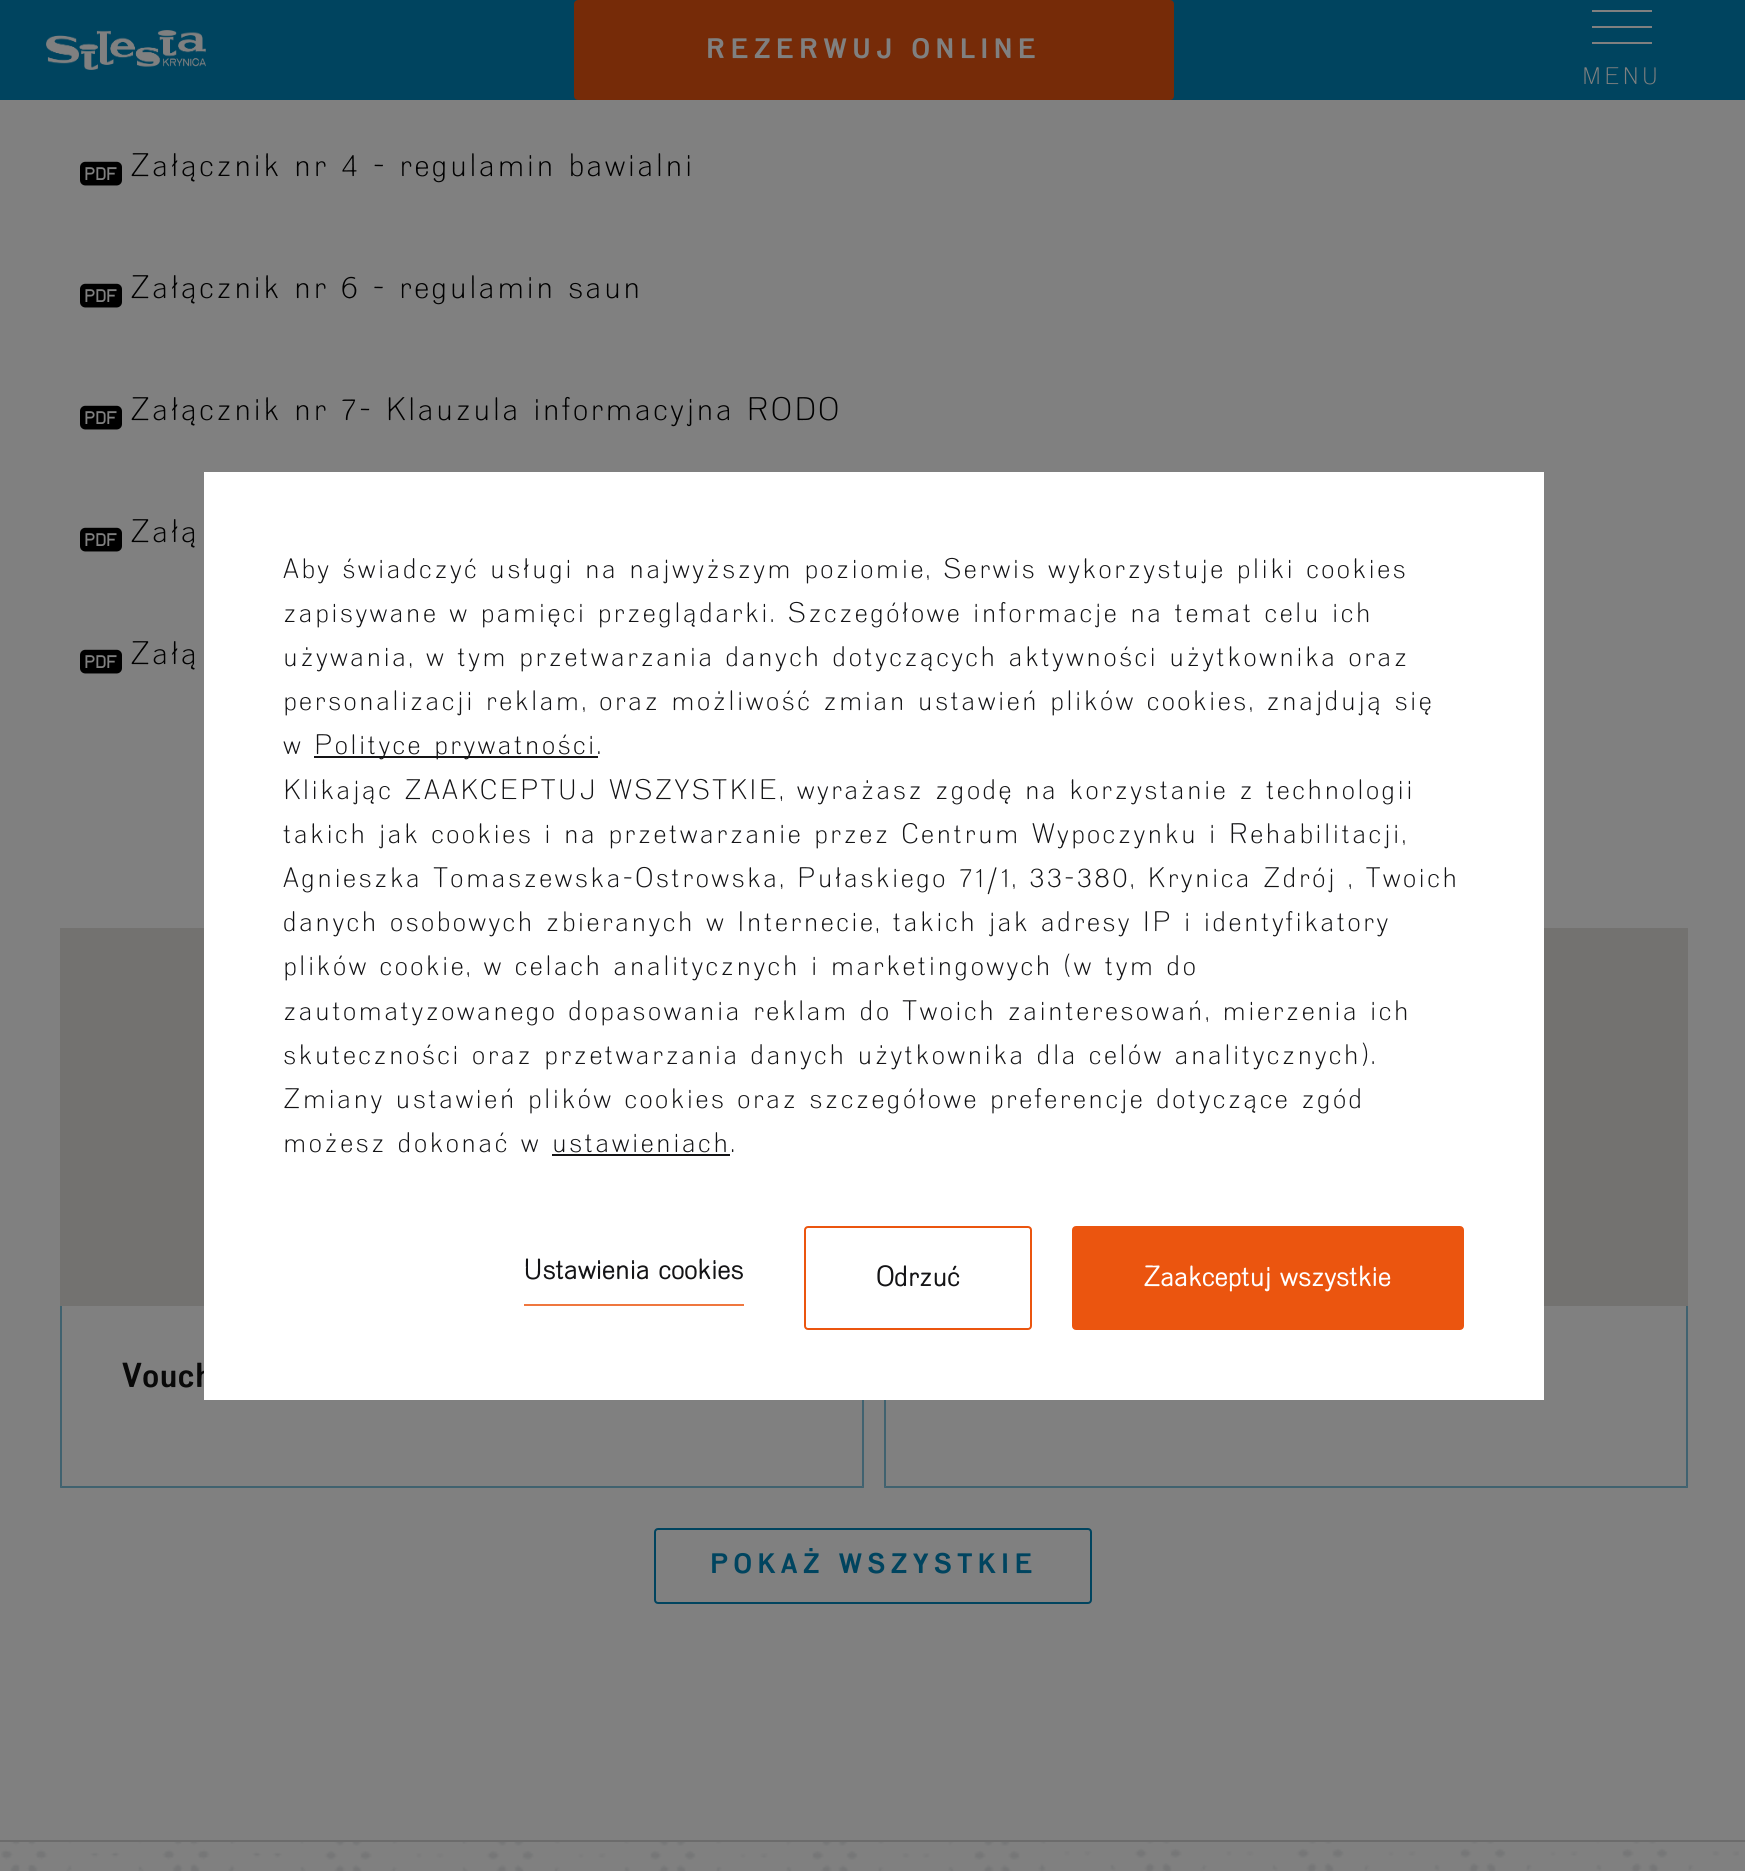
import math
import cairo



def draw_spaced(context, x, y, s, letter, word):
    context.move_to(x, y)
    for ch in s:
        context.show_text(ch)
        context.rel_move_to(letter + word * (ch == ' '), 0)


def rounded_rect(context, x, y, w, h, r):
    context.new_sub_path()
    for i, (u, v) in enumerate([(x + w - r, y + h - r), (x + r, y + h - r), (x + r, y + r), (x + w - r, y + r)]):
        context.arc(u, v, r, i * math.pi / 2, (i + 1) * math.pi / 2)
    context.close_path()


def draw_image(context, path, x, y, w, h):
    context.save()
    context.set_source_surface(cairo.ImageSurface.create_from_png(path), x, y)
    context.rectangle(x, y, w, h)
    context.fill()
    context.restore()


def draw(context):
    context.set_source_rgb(128 / 255, 128 / 255, 128 / 255)
    context.paint()
    context.set_source_rgb(0, 68 / 255, 95 / 255)
    context.rectangle(0, 0, 1745, 100)
    context.fill()
    draw_image(context, "images/1.png", 46, 30, 160, 40)
    context.set_source_rgb(118 / 255, 43 / 255, 8 / 255)
    rounded_rect(context, 575, 1, 598, 98, 3)
    context.fill_preserve()
    context.stroke()
    context.set_source_rgb(128 / 255, 128 / 255, 128 / 255)
    context.rectangle(1592, 10, 60, 2)
    context.fill()
    context.rectangle(1592, 26, 60, 2)
    context.fill()
    context.rectangle(1592, 42, 60, 2)
    context.fill()
    draw_image(context, "images/2.png", 80, 161, 42, 25)
    draw_image(context, "images/2.png", 80, 283, 42, 25)
    draw_image(context, "images/2.png", 80, 405, 42, 25)
    draw_image(context, "images/2.png", 80, 527, 42, 25)
    draw_image(context, "images/2.png", 80, 649, 42, 25)
    context.set_source_rgb(115 / 255, 114 / 255, 112 / 255)
    context.rectangle(60, 928, 144, 378)
    context.fill()
    context.set_source_rgb(64 / 255, 98 / 255, 112 / 255)
    context.new_path()
    context.move_to(864, 1306)
    context.line_to(864, 1488)
    context.line_to(862, 1486)
    context.line_to(862, 1306)
    context.close_path()
    context.fill()
    context.set_source_rgba(0, 68 / 255, 95 / 255, 0.5)
    context.new_path()
    context.move_to(864, 1488)
    context.line_to(60, 1488)
    context.line_to(62, 1486)
    context.line_to(862, 1486)
    context.close_path()
    context.fill()
    context.new_path()
    context.move_to(60, 1488)
    context.line_to(60, 1306)
    context.line_to(62, 1306)
    context.line_to(62, 1486)
    context.close_path()
    context.fill()
    context.set_source_rgb(115 / 255, 114 / 255, 112 / 255)
    context.rectangle(1544, 928, 144, 378)
    context.fill()
    context.set_source_rgb(64 / 255, 98 / 255, 112 / 255)
    context.new_path()
    context.move_to(1688, 1306)
    context.line_to(1688, 1488)
    context.line_to(1686, 1486)
    context.line_to(1686, 1306)
    context.close_path()
    context.fill()
    context.set_source_rgba(0, 68 / 255, 95 / 255, 0.5)
    context.new_path()
    context.move_to(1688, 1488)
    context.line_to(884, 1488)
    context.line_to(886, 1486)
    context.line_to(1686, 1486)
    context.close_path()
    context.fill()
    context.new_path()
    context.move_to(884, 1488)
    context.line_to(884, 1306)
    context.line_to(886, 1306)
    context.line_to(886, 1486)
    context.close_path()
    context.fill()
    rounded_rect(context, 655, 1529, 436, 74, 3)
    context.set_source_rgb(0, 68 / 255, 95 / 255)
    context.stroke()
    draw_image(context, "images/3.png", 1, 1842, 1738, 29)
    context.set_source_rgb(108 / 255, 108 / 255, 108 / 255)
    context.rectangle(0, 1840, 1745, 2)
    context.fill()
    context.select_font_face("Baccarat", cairo.FontSlant.NORMAL, cairo.FontWeight.BOLD)
    context.set_font_size(26)
    context.set_source_rgb(128 / 255, 128 / 255, 128 / 255)
    draw_spaced(context, 706, 58, "REZERWUJ ONLINE", 5.25, 0)
    context.select_font_face("Baccarat Light")
    context.set_font_size(22)
    draw_spaced(context, 1582, 84, "MENU", 3, 0)
    context.set_font_size(30)
    context.set_source_rgb(0, 0, 0)
    draw_spaced(context, 130, 176, "Załącznik nr 4 - regulamin bawialni", 2.4, 0)
    draw_spaced(context, 130, 298, "Załącznik nr 6 - regulamin saun", 2.4, 0)
    draw_spaced(context, 130, 420, "Załącznik nr 7- Klauzula informacyjna RODO", 2.4, 0)
    draw_spaced(context, 130, 542, "Załą", 2.4, 0)
    draw_spaced(context, 130, 664, "Załą", 2.4, 0)
    context.select_font_face("Baccarat", cairo.FontSlant.NORMAL, cairo.FontWeight.BOLD)
    context.set_font_size(32)
    context.set_source_rgb(9 / 255, 9 / 255, 9 / 255)
    draw_spaced(context, 122, 1387, "Vouch", 0.5, 0)
    context.set_font_size(26)
    context.set_source_rgb(0, 68 / 255, 95 / 255)
    draw_spaced(context, 710, 1573, "POKAŻ WSZYSTKIE", 5.25, 0)
    context.set_source_rgb(1, 1, 1)
    context.rectangle(204, 472, 1340, 928)
    context.fill()
    context.select_font_face("Baccarat Light")
    context.set_source_rgb(20 / 255, 20 / 255, 22 / 255)
    draw_spaced(context, 283, 578, "Aby świadczyć usługi na najwyższym poziomie, Serwis wykorzystuje pliki cookies", 2.4, 0)
    draw_spaced(context, 283, 622, "zapisywane w pamięci przeglądarki. Szczegółowe informacje na temat celu ich", 2.4, 0)
    draw_spaced(context, 283, 666, "używania, w tym przetwarzania danych dotyczących aktywności użytkownika oraz", 2.4, 0)
    draw_spaced(context, 283, 710, "personalizacji reklam, oraz możliwość zmian ustawień plików cookies, znajdują się", 2.4, 0)
    draw_spaced(context, 283, 754, "w", 2.4, 0)
    context.rectangle(314, 756, 284, 2)
    context.fill()
    draw_spaced(context, 314, 754, "Polityce prywatności.", 2.4, 0)
    draw_spaced(context, 283, 799, "Klikając ZAAKCEPTUJ WSZYSTKIE, wyrażasz zgodę na korzystanie z technologii", 2.4, 0)
    draw_spaced(context, 283, 843, "takich jak cookies i na przetwarzanie przez Centrum Wypoczynku i Rehabilitacji,", 2.4, 0)
    draw_spaced(context, 283, 887, "Agnieszka Tomaszewska-Ostrowska, Pułaskiego 71/1, 33-380, Krynica Zdrój , Twoich", 2.4, 0)
    draw_spaced(context, 283, 931, "danych osobowych zbieranych w Internecie, takich jak adresy IP i identyfikatory", 2.4, 0)
    draw_spaced(context, 283, 975, "plików cookie, w celach analitycznych i marketingowych (w tym do", 2.4, 0)
    draw_spaced(context, 283, 1020, "zautomatyzowanego dopasowania reklam do Twoich zainteresowań, mierzenia ich", 2.4, 0)
    draw_spaced(context, 283, 1064, "skuteczności oraz przetwarzania danych użytkownika dla celów analitycznych).", 2.4, 0)
    draw_spaced(context, 283, 1108, "Zmiany ustawień plików cookies oraz szczegółowe preferencje dotyczące zgód", 2.4, 0)
    draw_spaced(context, 283, 1152, "możesz dokonać w ustawieniach.", 2.4, 0)
    context.rectangle(552, 1154, 178, 2)
    context.fill()
    context.select_font_face("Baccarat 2", cairo.FontSlant.NORMAL, cairo.FontWeight.BOLD)
    context.move_to(523, 1279)
    context.show_text("Ustawienia cookies")
    context.set_source_rgb(239 / 255, 119 / 255, 63 / 255)
    context.rectangle(524, 1304, 220, 2)
    context.fill()
    rounded_rect(context, 805, 1227, 226, 102, 3)
    context.set_source_rgb(235 / 255, 85 / 255, 15 / 255)
    context.stroke()
    context.set_source_rgb(20 / 255, 20 / 255, 22 / 255)
    context.move_to(876, 1286)
    context.show_text("Odrzuć")
    rounded_rect(context, 1073, 1227, 390, 102, 3)
    context.set_source_rgb(235 / 255, 85 / 255, 15 / 255)
    context.stroke()
    context.rectangle(1074, 1228, 388, 100)
    context.fill()
    context.set_source_rgb(1, 1, 1)
    context.move_to(1143, 1286)
    context.show_text("Zaakceptuj wszystkie")


surface = cairo.ImageSurface(cairo.Format.RGB24, 1745, 1871)
context = cairo.Context(surface)
options = cairo.FontOptions()
options.set_hint_metrics(cairo.HintMetrics.OFF)
options.set_hint_style(cairo.HintStyle.NONE)
context.set_font_options(options)
context.set_miter_limit(4)
draw(context)
surface.write_to_png("out.png")
